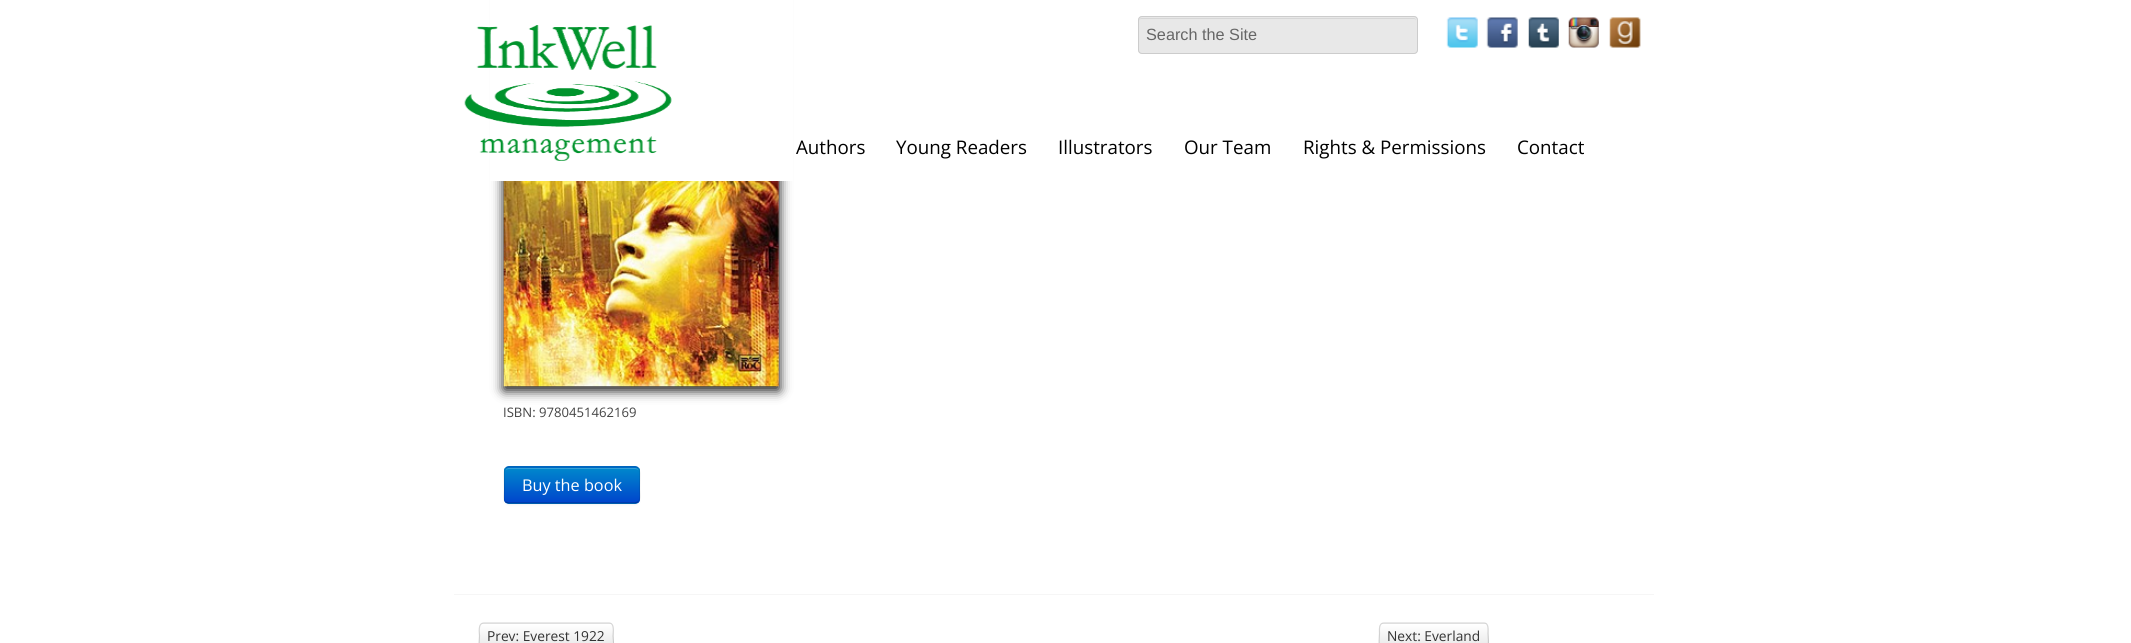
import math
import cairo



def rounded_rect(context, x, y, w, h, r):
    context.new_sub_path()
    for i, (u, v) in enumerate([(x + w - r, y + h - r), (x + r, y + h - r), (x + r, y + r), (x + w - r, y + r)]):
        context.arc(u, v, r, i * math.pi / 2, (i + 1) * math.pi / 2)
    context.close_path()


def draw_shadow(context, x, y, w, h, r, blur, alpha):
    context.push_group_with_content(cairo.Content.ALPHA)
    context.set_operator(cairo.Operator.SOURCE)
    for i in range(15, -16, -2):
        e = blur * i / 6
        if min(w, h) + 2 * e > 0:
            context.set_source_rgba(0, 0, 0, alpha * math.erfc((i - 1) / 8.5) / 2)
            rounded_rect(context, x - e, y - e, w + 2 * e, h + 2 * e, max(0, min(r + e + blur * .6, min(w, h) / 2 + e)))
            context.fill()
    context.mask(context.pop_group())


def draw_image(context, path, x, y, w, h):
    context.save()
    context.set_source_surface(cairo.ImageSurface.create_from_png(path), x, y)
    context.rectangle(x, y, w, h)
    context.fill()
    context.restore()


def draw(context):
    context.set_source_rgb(1, 1, 1)
    context.paint()
    context.set_source_rgb(0, 0, 0)
    draw_shadow(context, 504, -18, 275, 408, 0, 6, 1)
    context.set_source_rgb(1, 1, 1)
    context.rectangle(490, 0, 303, 181)
    context.fill()
    draw_image(context, "images/1.png", 464, 25, 208, 136)
    context.set_source_rgb(232 / 255, 232 / 255, 232 / 255)
    rounded_rect(context, 1138, 16, 280, 38, 4)
    context.fill()
    context.set_source_rgb(215 / 255, 215 / 255, 215 / 255)
    context.new_path()
    context.move_to(1141, 19)
    context.line_to(1414, 19)
    context.curve_to(1415, 19, 1416, 20, 1416, 21)
    context.curve_to(1416, 19, 1415, 18, 1414, 18)
    context.line_to(1142, 18)
    context.curve_to(1140, 18, 1139, 19, 1139, 21)
    context.curve_to(1139, 20, 1140, 19, 1141, 19)
    context.close_path()
    context.fill()
    rounded_rect(context, 1138.5, 16.5, 279, 37, 3.5)
    context.set_source_rgb(204 / 255, 204 / 255, 204 / 255)
    context.set_line_width(1)
    context.stroke()
    draw_image(context, "images/2.png", 1446, 17, 32, 31)
    draw_image(context, "images/3.png", 1486, 17, 32, 31)
    draw_image(context, "images/4.png", 1528, 17, 31, 31)
    draw_image(context, "images/5.png", 1568, 17, 31, 31)
    draw_image(context, "images/6.png", 1609, 17, 32, 31)
    draw_image(context, "images/7.png", 503, 181, 276, 206)
    context.set_source_rgb(0, 0, 0)
    draw_shadow(context, 504, 468, 136, 37, 5, 1, 0.05)
    context.set_source_rgb(0, 109 / 255, 204 / 255)
    rounded_rect(context, 504, 466, 136, 38, 5)
    context.fill()
    context.save()
    rounded_rect(context, 504, 466, 136, 38, 5)
    context.clip()
    gradient = cairo.LinearGradient(572, 468, 572, 503)
    gradient.add_color_stop_rgba(0, 0, 136 / 255, 204 / 255, 1)
    gradient.add_color_stop_rgba(1, 0, 68 / 255, 204 / 255, 1)
    context.set_source(gradient)
    context.rectangle(504, 468, 136, 35)
    context.fill()
    context.restore()
    context.set_source_rgb(51 / 255, 159 / 255, 214 / 255)
    context.new_path()
    context.move_to(509, 469)
    context.line_to(635, 469)
    context.curve_to(637, 469, 639, 470, 639, 472)
    context.curve_to(639, 470, 637, 468, 635, 468)
    context.line_to(509, 468)
    context.curve_to(507, 468, 505, 470, 505, 472)
    context.curve_to(505, 470, 507, 469, 509, 469)
    context.close_path()
    context.fill()
    context.new_path()
    context.move_to(638, 502)
    context.line_to(635, 503)
    context.line_to(508.5, 503)
    context.line_to(505.5, 502)
    context.set_source_rgba(0, 0, 0, 0.25)
    context.set_line_width(1.2)
    context.stroke()
    context.new_path()
    context.move_to(505.5, 502)
    context.curve_to(503, 499, 504.5, 492.5, 504.5, 489.5)
    context.curve_to(504.5, 462, 500, 467, 530, 467)
    context.line_to(614, 467)
    context.curve_to(644, 467, 639.5, 462, 639.5, 489.5)
    context.curve_to(639.5, 492.5, 641, 499, 638, 502)
    context.set_source_rgba(0, 0, 0, 0.1)
    context.stroke()
    context.set_source_rgb(246 / 255, 246 / 255, 246 / 255)
    context.rectangle(454, 594, 1200, 1)
    context.fill()
    context.set_source_rgb(245 / 255, 245 / 255, 245 / 255)
    rounded_rect(context, 479, 623, 135, 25, 5)
    context.fill()
    context.save()
    rounded_rect(context, 479, 623, 135, 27, 5)
    context.clip()
    gradient = cairo.LinearGradient(546, 624, 546, 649)
    gradient.add_color_stop_rgba(0, 1, 1, 1, 1)
    gradient.add_color_stop_rgba(1, 230 / 255, 230 / 255, 230 / 255, 1)
    context.set_source(gradient)
    context.rectangle(479, 624, 135, 19)
    context.fill()
    context.restore()
    context.set_source_rgba(1, 1, 1, 0.2)
    context.new_path()
    context.move_to(484, 625)
    context.line_to(609, 625)
    context.curve_to(613, 625, 612, 633, 612, 635)
    context.line_to(612, 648)
    context.curve_to(612, 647, 613, 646, 613, 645)
    context.line_to(613, 628)
    context.curve_to(613, 626, 611, 624, 609, 624)
    context.line_to(484, 624)
    context.curve_to(482, 624, 480, 626, 480, 628)
    context.line_to(480, 629)
    context.curve_to(480, 627, 482, 625, 484, 625)
    context.close_path()
    context.fill()
    context.new_path()
    context.move_to(480.5, 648)
    context.curve_to(478, 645.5, 479.5, 639.5, 479.5, 636)
    context.curve_to(479.5, 633, 477.5, 623, 484, 623)
    context.line_to(609, 623)
    context.curve_to(615, 623, 613, 633, 613, 636)
    context.curve_to(613, 639.5, 614.5, 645.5, 612, 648)
    context.set_source_rgba(0, 0, 0, 0.15)
    context.stroke()
    context.set_source_rgb(245 / 255, 245 / 255, 245 / 255)
    rounded_rect(context, 1379, 623, 110, 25, 5)
    context.fill()
    context.save()
    rounded_rect(context, 1379, 623, 110, 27, 5)
    context.clip()
    gradient = cairo.LinearGradient(1434, 624, 1434, 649)
    gradient.add_color_stop_rgba(0, 1, 1, 1, 1)
    gradient.add_color_stop_rgba(1, 230 / 255, 230 / 255, 230 / 255, 1)
    context.set_source(gradient)
    context.rectangle(1379, 624, 110, 19)
    context.fill()
    context.restore()
    context.new_path()
    context.move_to(1380.5, 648)
    context.curve_to(1378, 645.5, 1379.5, 636.5, 1379.5, 633.5)
    context.curve_to(1379.5, 630, 1378.5, 623, 1384, 623)
    context.line_to(1484, 623)
    context.curve_to(1489, 623, 1488, 630, 1488, 633.5)
    context.curve_to(1488, 636.5, 1489.5, 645.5, 1487, 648)
    context.set_source_rgba(0, 0, 0, 0.15)
    context.stroke()
    context.select_font_face("Liberation Sans")
    context.set_font_size(16.25)
    context.set_source_rgb(102 / 255, 102 / 255, 102 / 255)
    context.move_to(1146, 40)
    context.show_text("Search the Site")
    context.select_font_face("Open Sans")
    context.set_font_size(18.75)
    context.set_source_rgb(0, 0, 0)
    context.move_to(796, 154)
    context.show_text("Authors")
    context.move_to(896, 154)
    context.show_text("Young Readers")
    context.move_to(1058, 154)
    context.show_text("Illustrators")
    context.move_to(1184, 154)
    context.show_text("Our Team")
    context.move_to(1303, 154)
    context.show_text("Rights & Permissions")
    context.move_to(1517, 154)
    context.show_text("Contact")
    context.set_font_size(13.1)
    context.set_source_rgb(68 / 255, 68 / 255, 68 / 255)
    context.move_to(503, 417)
    context.show_text("ISBN: 9780451462169")
    context.set_font_size(16.25)
    context.set_source_rgb(1, 1, 1)
    context.move_to(522, 491)
    context.show_text("Buy the book")
    context.set_font_size(13.75)
    context.set_source_rgb(51 / 255, 51 / 255, 51 / 255)
    context.move_to(487, 641)
    context.show_text("Prev: Everest 1922")
    context.move_to(1387, 641)
    context.show_text("Next: Everland")


surface = cairo.ImageSurface(cairo.Format.RGB24, 2131, 643)
context = cairo.Context(surface)
options = cairo.FontOptions()
options.set_hint_metrics(cairo.HintMetrics.OFF)
options.set_hint_style(cairo.HintStyle.NONE)
context.set_font_options(options)
context.set_miter_limit(4)
draw(context)
surface.write_to_png("out.png")
